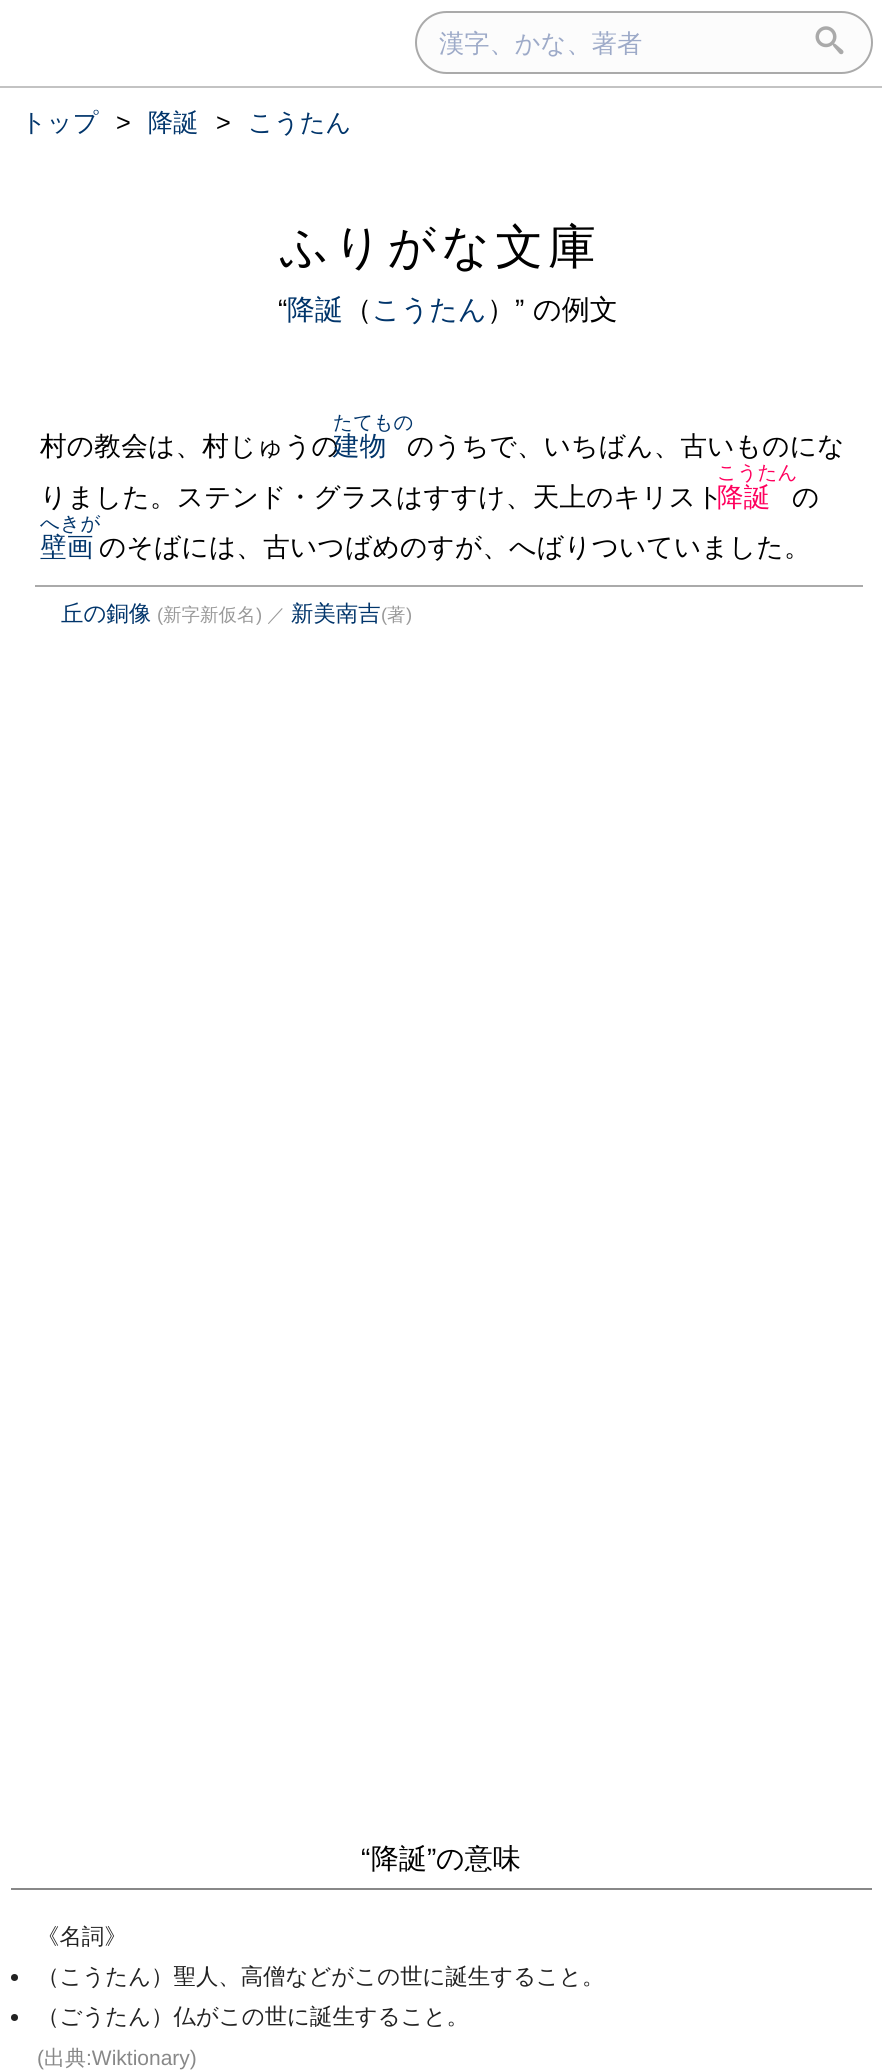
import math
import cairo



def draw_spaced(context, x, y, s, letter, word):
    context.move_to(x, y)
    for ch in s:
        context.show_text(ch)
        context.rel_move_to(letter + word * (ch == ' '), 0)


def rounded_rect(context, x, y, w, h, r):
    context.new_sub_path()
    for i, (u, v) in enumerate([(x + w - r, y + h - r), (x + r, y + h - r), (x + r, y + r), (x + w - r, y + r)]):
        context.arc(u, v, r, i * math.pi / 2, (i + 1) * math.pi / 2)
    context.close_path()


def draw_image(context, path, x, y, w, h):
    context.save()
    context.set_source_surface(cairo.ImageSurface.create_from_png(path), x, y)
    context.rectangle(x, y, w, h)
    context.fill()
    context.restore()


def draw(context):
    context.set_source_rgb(1, 1, 1)
    context.paint()
    context.set_source_rgb(195 / 255, 195 / 255, 195 / 255)
    context.rectangle(0, 86, 882, 2)
    context.fill()
    context.set_source_rgb(252 / 255, 252 / 255, 252 / 255)
    rounded_rect(context, 416, 12, 456, 61, 30.5)
    context.fill_preserve()
    context.set_source_rgb(170 / 255, 170 / 255, 170 / 255)
    context.stroke()
    draw_image(context, "images/1.png", 815, 26, 29, 29)
    context.rectangle(35, 585, 828, 2)
    context.fill()
    context.set_source_rgb(136 / 255, 136 / 255, 136 / 255)
    context.rectangle(11, 1888, 861, 2)
    context.fill()
    context.set_source_rgb(34 / 255, 34 / 255, 34 / 255)
    context.arc(14.5, 1977.5, 3.5, 0, 2 * math.pi)
    context.fill()
    context.arc(14.5, 2017.5, 3.5, 0, 2 * math.pi)
    context.fill()
    context.select_font_face("WenQuanYi Zen Hei Medium")
    context.set_font_size(25.25)
    context.set_source_rgb(157 / 255, 170 / 255, 200 / 255)
    context.move_to(439, 52)
    context.show_text("漢字、かな、著者")
    context.set_source_rgb(1 / 255, 53 / 255, 107 / 255)
    context.move_to(21, 131)
    context.show_text("トップ")
    context.select_font_face("Liberation Sans")
    context.set_source_rgb(0, 0, 0)
    context.move_to(116, 131)
    context.show_text(">")
    context.select_font_face("WenQuanYi Zen Hei Medium")
    context.set_source_rgb(1 / 255, 53 / 255, 107 / 255)
    context.move_to(148, 131)
    context.show_text("降誕")
    context.select_font_face("Liberation Sans")
    context.set_source_rgb(0, 0, 0)
    context.move_to(216, 131)
    context.show_text(">")
    context.select_font_face("WenQuanYi Zen Hei Medium")
    context.set_source_rgb(1 / 255, 53 / 255, 107 / 255)
    context.move_to(248, 131)
    context.show_text("こうたん")
    context.set_font_size(47.5)
    context.set_source_rgb(0, 0, 0)
    draw_spaced(context, 280, 263, "ふりがな文庫", 5.25, 0)
    context.select_font_face("Liberation Sans")
    context.set_font_size(28)
    context.move_to(278, 319)
    context.show_text("“")
    context.select_font_face("WenQuanYi Zen Hei Medium")
    context.set_source_rgb(1 / 255, 53 / 255, 107 / 255)
    context.move_to(287, 319)
    context.show_text("降誕")
    context.set_source_rgb(0, 0, 0)
    context.move_to(344, 319)
    context.show_text("（")
    context.set_source_rgb(1 / 255, 53 / 255, 107 / 255)
    context.move_to(372, 319)
    context.show_text("こうたん")
    context.set_source_rgb(0, 0, 0)
    context.move_to(487, 319)
    context.show_text("）")
    context.select_font_face("Liberation Sans")
    context.move_to(515, 319)
    context.show_text("”")
    context.select_font_face("WenQuanYi Zen Hei Medium")
    context.move_to(533, 319)
    context.show_text("の例文")
    context.set_font_size(26.6)
    draw_spaced(context, 40, 455, "村の教会は、村じゅうの", 0.25, 0)
    context.set_font_size(19.5)
    context.set_source_rgb(1 / 255, 53 / 255, 107 / 255)
    draw_spaced(context, 333, 429, "たてもの", 0.25, 0)
    context.set_font_size(26.6)
    draw_spaced(context, 333, 455, "建物", 0.25, 0)
    context.set_source_rgb(0, 0, 0)
    draw_spaced(context, 407, 455, "のうちで、いちばん、古いものにな", 0.25, 0)
    draw_spaced(context, 40, 506, "りました。ステンド・グラスはすすけ、天上のキリスト", 0.25, 0)
    context.set_font_size(19.5)
    context.set_source_rgb(1, 0, 93 / 255)
    draw_spaced(context, 717, 479, "こうたん", 0.25, 0)
    context.set_font_size(26.6)
    draw_spaced(context, 717, 506, "降誕", 0.25, 0)
    context.set_source_rgb(0, 0, 0)
    draw_spaced(context, 792, 506, "の", 0.25, 0)
    context.set_font_size(19.5)
    context.set_source_rgb(1 / 255, 53 / 255, 107 / 255)
    draw_spaced(context, 40, 530, "へきが", 0.25, 0)
    context.set_font_size(26.6)
    draw_spaced(context, 40, 556, "壁画", 0.25, 0)
    context.set_source_rgb(0, 0, 0)
    draw_spaced(context, 99, 556, "のそばには、古いつばめのすが、へばりついていました。", 0.25, 0)
    context.set_font_size(22.4)
    context.set_source_rgb(1 / 255, 53 / 255, 107 / 255)
    context.move_to(61, 621)
    context.show_text("丘の銅像")
    context.select_font_face("Liberation Sans")
    context.set_font_size(18.5)
    context.set_source_rgb(153 / 255, 153 / 255, 153 / 255)
    context.move_to(157, 621)
    context.show_text("(")
    context.select_font_face("WenQuanYi Zen Hei Medium")
    context.move_to(163, 621)
    context.show_text("新字新仮名")
    context.select_font_face("Liberation Sans")
    context.move_to(256, 621)
    context.show_text(")")
    context.select_font_face("WenQuanYi Zen Hei Medium")
    context.move_to(267, 621)
    context.show_text("／")
    context.set_font_size(22.4)
    context.set_source_rgb(1 / 255, 53 / 255, 107 / 255)
    context.move_to(291, 621)
    context.show_text("新美南吉")
    context.select_font_face("Liberation Sans")
    context.set_font_size(18.5)
    context.set_source_rgb(153 / 255, 153 / 255, 153 / 255)
    context.move_to(381, 621)
    context.show_text("(")
    context.select_font_face("WenQuanYi Zen Hei Medium")
    context.move_to(387, 621)
    context.show_text("著")
    context.select_font_face("Liberation Sans")
    context.move_to(406, 621)
    context.show_text(")")
    context.set_font_size(28)
    context.set_source_rgb(0, 0, 0)
    context.move_to(361, 1868)
    context.show_text("“")
    context.select_font_face("WenQuanYi Zen Hei Medium")
    context.move_to(371, 1868)
    context.show_text("降誕")
    context.select_font_face("Liberation Sans")
    context.move_to(427, 1868)
    context.show_text("”")
    context.select_font_face("WenQuanYi Zen Hei Medium")
    context.move_to(436, 1868)
    context.show_text("の意味")
    context.set_font_size(22.4)
    context.set_source_rgb(34 / 255, 34 / 255, 34 / 255)
    context.move_to(37, 1944)
    context.show_text("《名詞》")
    context.move_to(37, 1984)
    context.show_text("（こうたん）聖人、高僧などがこの世に誕生すること。")
    context.move_to(37, 2024)
    context.show_text("（ごうたん）仏がこの世に誕生すること。")
    context.select_font_face("Liberation Sans")
    context.set_font_size(21)
    context.set_source_rgb(136 / 255, 136 / 255, 136 / 255)
    context.move_to(37, 2065)
    context.show_text("(")
    context.select_font_face("WenQuanYi Zen Hei Medium")
    context.move_to(44, 2065)
    context.show_text("出典")
    context.select_font_face("Liberation Sans")
    context.move_to(86, 2065)
    context.show_text(":Wiktionary)")


surface = cairo.ImageSurface(cairo.Format.RGB24, 882, 2071)
context = cairo.Context(surface)
options = cairo.FontOptions()
options.set_hint_metrics(cairo.HintMetrics.OFF)
options.set_hint_style(cairo.HintStyle.NONE)
context.set_font_options(options)
context.set_miter_limit(4)
draw(context)
surface.write_to_png("out.png")
